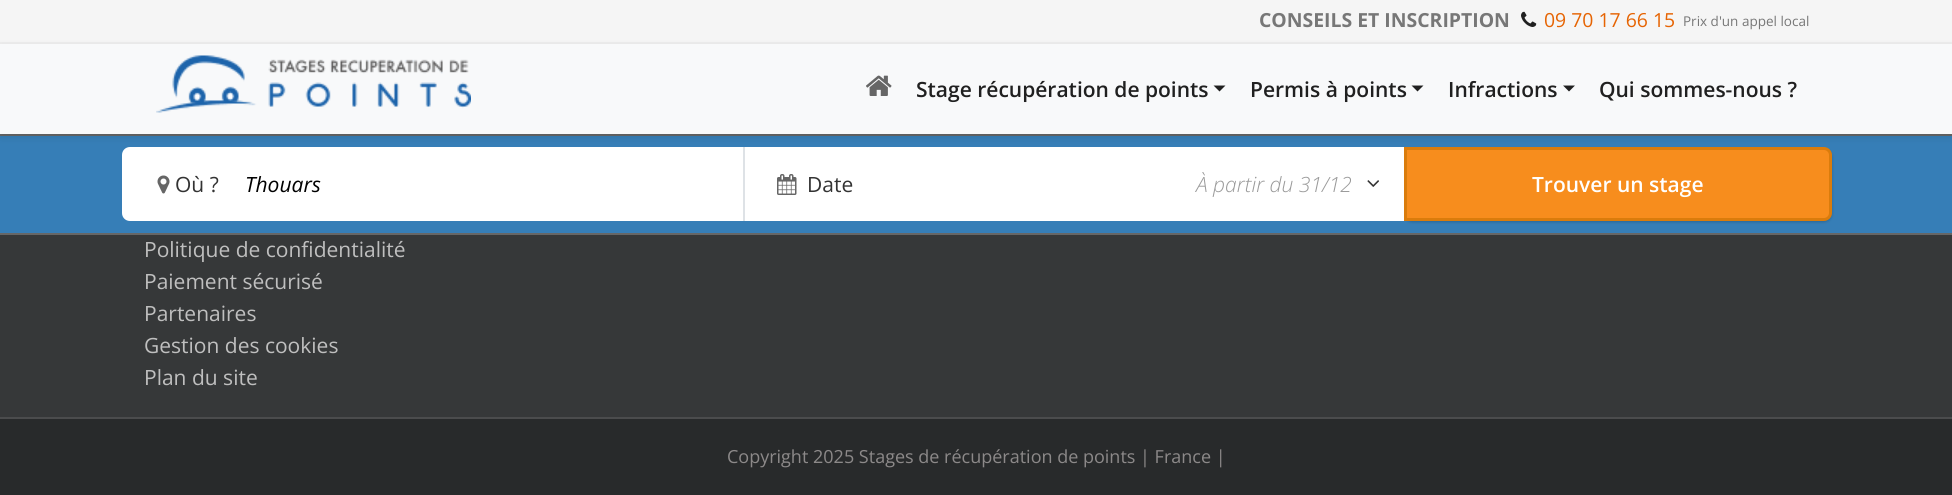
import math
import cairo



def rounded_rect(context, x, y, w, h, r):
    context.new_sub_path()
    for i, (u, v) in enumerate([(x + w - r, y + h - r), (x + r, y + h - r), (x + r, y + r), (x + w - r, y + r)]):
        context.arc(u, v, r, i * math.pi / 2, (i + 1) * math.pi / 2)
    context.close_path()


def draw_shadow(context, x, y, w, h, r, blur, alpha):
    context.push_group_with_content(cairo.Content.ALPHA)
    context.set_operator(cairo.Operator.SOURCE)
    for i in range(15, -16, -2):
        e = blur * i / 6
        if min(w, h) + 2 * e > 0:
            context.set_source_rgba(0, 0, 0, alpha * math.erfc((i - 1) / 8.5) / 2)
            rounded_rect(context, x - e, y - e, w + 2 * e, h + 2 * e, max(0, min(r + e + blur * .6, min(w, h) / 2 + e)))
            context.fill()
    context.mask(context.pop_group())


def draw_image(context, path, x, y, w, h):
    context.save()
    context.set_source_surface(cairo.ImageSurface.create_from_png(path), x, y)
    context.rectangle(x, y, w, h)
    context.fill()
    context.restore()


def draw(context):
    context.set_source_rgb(54 / 255, 56 / 255, 57 / 255)
    context.paint()
    context.set_source_rgb(245 / 255, 245 / 255, 245 / 255)
    context.rectangle(0, 0, 1952, 42)
    context.fill()
    context.set_source_rgb(238 / 255, 238 / 255, 238 / 255)
    context.rectangle(0, 42, 1952, 2)
    context.fill()
    draw_image(context, "images/1.png", 1521, 11, 16, 16)
    context.set_source_rgb(54 / 255, 126 / 255, 183 / 255)
    context.rectangle(0, 136, 1952, 97)
    context.fill()
    context.set_source_rgb(102 / 255, 102 / 255, 102 / 255)
    context.rectangle(0, 134, 1952, 2)
    context.fill()
    context.set_source_rgb(0, 0, 0)
    draw_shadow(context, 0, 47, 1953, 90, 0, 4, 0.1)
    context.set_source_rgb(248 / 255, 249 / 255, 250 / 255)
    context.rectangle(0, 44, 1952, 90)
    context.fill()
    draw_image(context, "images/2.png", 156, 55, 315, 58)
    draw_image(context, "images/3.png", 866, 75, 26, 21)
    context.set_source_rgb(32 / 255, 32 / 255, 32 / 255)
    context.new_path()
    context.move_to(1213.5, 85.5)
    context.line_to(1225.5, 85.5)
    context.line_to(1219.5, 91.5)
    context.close_path()
    context.fill()
    context.new_path()
    context.move_to(1411.5, 85.5)
    context.line_to(1423.5, 85.5)
    context.line_to(1417.5, 91.5)
    context.close_path()
    context.fill()
    context.new_path()
    context.move_to(1563, 85.5)
    context.line_to(1575, 85.5)
    context.line_to(1569, 91.5)
    context.close_path()
    context.fill()
    context.set_source_rgb(102 / 255, 102 / 255, 102 / 255)
    context.rectangle(0, 233, 1952, 2)
    context.fill()
    context.set_source_rgb(1, 1, 1)
    context.new_path()
    context.move_to(130, 147)
    context.line_to(743, 147)
    context.line_to(743, 221)
    context.line_to(130, 221)
    context.curve_to(125.5, 221, 122, 217.5, 122, 213)
    context.line_to(122, 155)
    context.curve_to(122, 150.5, 125.5, 147, 130, 147)
    context.close_path()
    context.fill()
    draw_image(context, "images/4.png", 157, 175, 13, 19)
    context.set_source_rgb(0, 0, 0)
    draw_shadow(context, 1404, 149, 428, 73, 8, 1.5, 0.2)
    context.set_source_rgb(1, 1, 1)
    context.rectangle(745, 147, 659, 74)
    context.fill()
    context.set_source_rgb(222 / 255, 226 / 255, 230 / 255)
    context.rectangle(743, 147, 2, 74)
    context.fill()
    draw_image(context, "images/5.png", 777, 174, 20, 21)
    draw_image(context, "images/6.png", 1367, 180, 12, 7)
    context.set_source_rgb(247 / 255, 141 / 255, 29 / 255)
    context.new_path()
    context.move_to(1405.5, 148.5)
    context.line_to(1824, 148.5)
    context.curve_to(1827.5, 148.5, 1830.5, 151.5, 1830.5, 155)
    context.line_to(1830.5, 213)
    context.curve_to(1830.5, 216.5, 1827.5, 219.5, 1824, 219.5)
    context.line_to(1405.5, 219.5)
    context.close_path()
    context.fill_preserve()
    context.set_source_rgb(218 / 255, 124 / 255, 12 / 255)
    context.set_line_width(3)
    context.stroke()
    context.set_source_rgb(40 / 255, 42 / 255, 43 / 255)
    context.rectangle(0, 419, 1952, 76)
    context.fill()
    context.set_source_rgb(75 / 255, 76 / 255, 77 / 255)
    context.rectangle(0, 417, 1952, 2)
    context.fill()
    context.select_font_face("Open Sans", cairo.FontSlant.NORMAL, cairo.FontWeight.BOLD)
    context.set_font_size(19.4)
    context.set_source_rgb(119 / 255, 119 / 255, 119 / 255)
    context.move_to(1259, 27)
    context.show_text("CONSEILS ET INSCRIPTION")
    context.select_font_face("Open Sans")
    context.set_source_rgb(230 / 255, 100 / 255, 3 / 255)
    context.move_to(1544, 27)
    context.show_text("09 70 17 66 15")
    context.set_font_size(13.5)
    context.set_source_rgb(119 / 255, 119 / 255, 119 / 255)
    context.move_to(1683, 26)
    context.show_text("Prix d'un appel local")
    context.select_font_face("Open Sans SemiBold")
    context.set_font_size(21)
    context.set_source_rgb(32 / 255, 32 / 255, 32 / 255)
    context.move_to(916, 97)
    context.show_text("Stage récupération de points")
    context.move_to(1250, 97)
    context.show_text("Permis à points")
    context.move_to(1448, 97)
    context.show_text("Infractions")
    context.move_to(1599, 97)
    context.show_text("Qui sommes-nous ?")
    context.select_font_face("Open Sans")
    context.set_source_rgb(51 / 255, 51 / 255, 51 / 255)
    context.move_to(175, 192)
    context.show_text("Où ?")
    context.select_font_face("Open Sans", cairo.FontSlant.ITALIC)
    context.set_source_rgb(0, 0, 0)
    context.move_to(245, 192)
    context.show_text("Thouars")
    context.select_font_face("Open Sans")
    context.set_source_rgb(51 / 255, 51 / 255, 51 / 255)
    context.move_to(807, 192)
    context.show_text("Date")
    context.select_font_face("Open Sans Light", cairo.FontSlant.ITALIC)
    context.set_source_rgb(153 / 255, 153 / 255, 153 / 255)
    context.move_to(1196, 192)
    context.show_text("À partir du 31/12")
    context.select_font_face("Open Sans SemiBold")
    context.set_source_rgb(1, 1, 1)
    context.move_to(1532, 192)
    context.show_text("Trouver un stage")
    context.select_font_face("Open Sans")
    context.set_source_rgb(191 / 255, 191 / 255, 191 / 255)
    context.move_to(144, 257)
    context.show_text("Politique de confidentialité")
    context.move_to(144, 289)
    context.show_text("Paiement sécurisé")
    context.move_to(144, 321)
    context.show_text("Partenaires")
    context.move_to(144, 353)
    context.show_text("Gestion des cookies")
    context.move_to(144, 385)
    context.show_text("Plan du site")
    context.set_font_size(18)
    context.set_source_rgb(140 / 255, 137 / 255, 137 / 255)
    context.move_to(727, 463)
    context.show_text("Copyright 2025 Stages de récupération de points | France |")


surface = cairo.ImageSurface(cairo.Format.RGB24, 1952, 495)
context = cairo.Context(surface)
options = cairo.FontOptions()
options.set_hint_metrics(cairo.HintMetrics.OFF)
options.set_hint_style(cairo.HintStyle.NONE)
context.set_font_options(options)
context.set_miter_limit(4)
draw(context)
surface.write_to_png("out.png")
